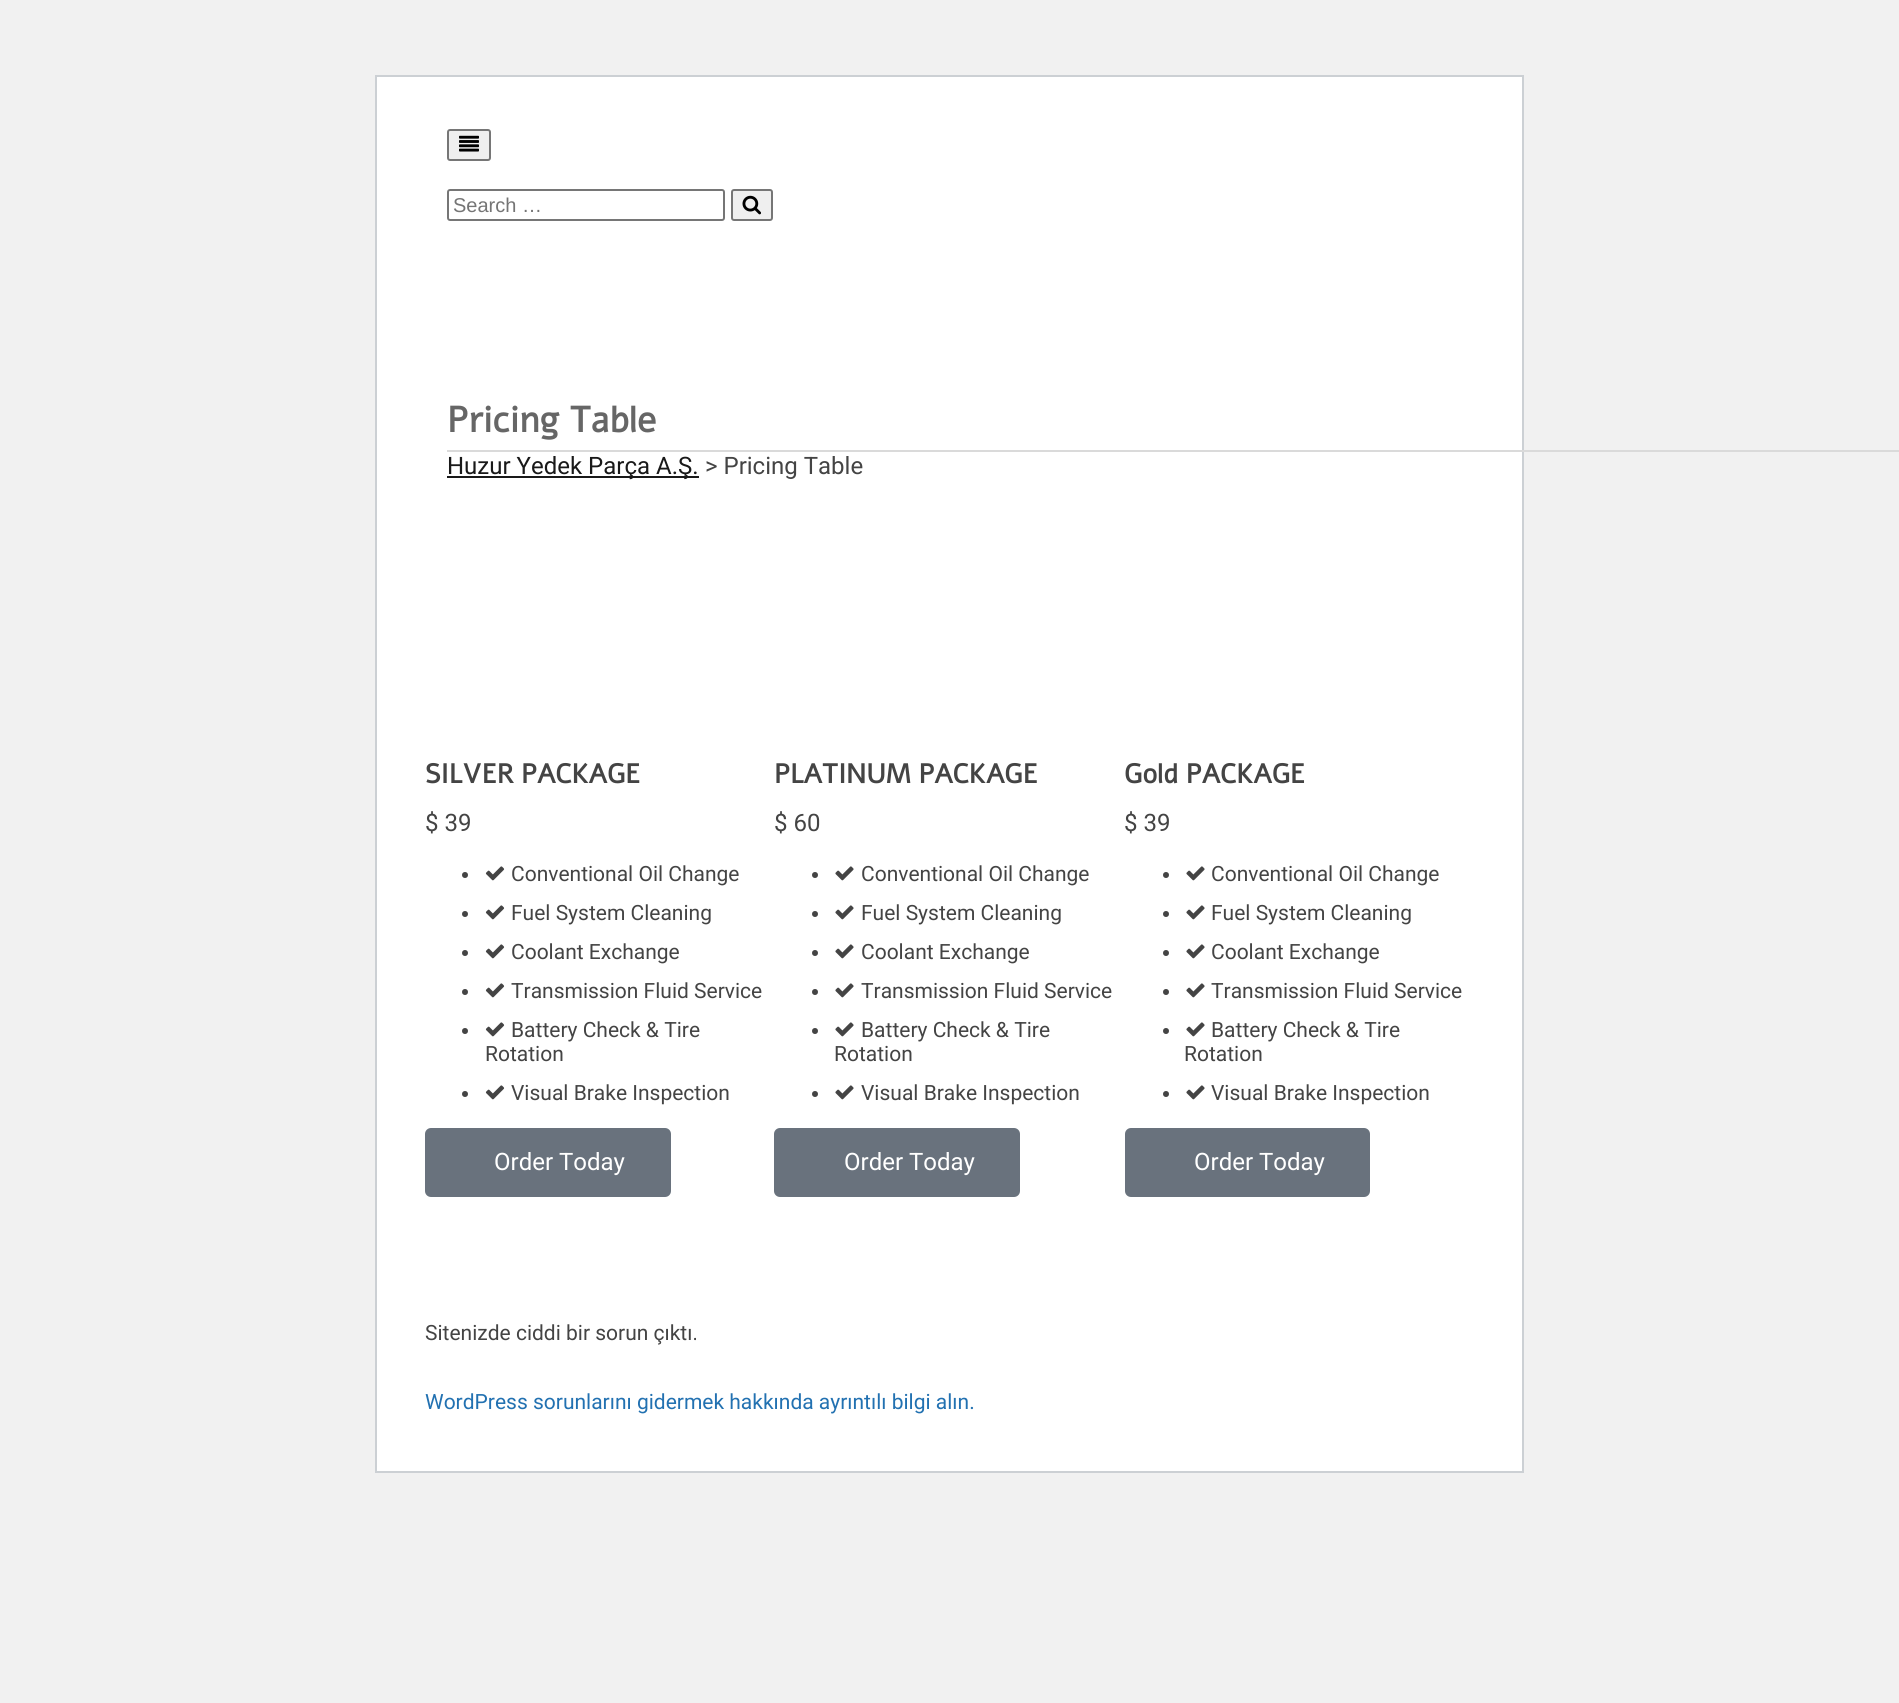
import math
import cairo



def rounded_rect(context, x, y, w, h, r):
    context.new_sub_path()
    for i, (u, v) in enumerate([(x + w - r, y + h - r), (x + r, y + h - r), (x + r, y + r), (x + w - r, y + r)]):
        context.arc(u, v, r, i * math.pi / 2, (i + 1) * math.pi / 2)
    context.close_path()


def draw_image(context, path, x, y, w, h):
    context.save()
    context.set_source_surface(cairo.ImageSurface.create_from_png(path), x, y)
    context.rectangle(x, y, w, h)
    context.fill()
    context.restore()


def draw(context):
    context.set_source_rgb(241 / 255, 241 / 255, 241 / 255)
    context.paint()
    context.set_source_rgb(1, 1, 1)
    context.rectangle(376, 76, 1147, 1396)
    context.fill_preserve()
    context.set_source_rgb(204 / 255, 208 / 255, 212 / 255)
    context.stroke()
    context.set_source_rgb(239 / 255, 239 / 255, 239 / 255)
    rounded_rect(context, 448, 130, 42, 30, 2)
    context.fill_preserve()
    context.set_source_rgb(118 / 255, 118 / 255, 118 / 255)
    context.stroke()
    draw_image(context, "images/1.png", 459, 135, 20, 17)
    rounded_rect(context, 448, 190, 276, 30, 2)
    context.stroke()
    context.set_source_rgb(239 / 255, 239 / 255, 239 / 255)
    rounded_rect(context, 732, 190, 40, 30, 2)
    context.fill_preserve()
    context.set_source_rgb(118 / 255, 118 / 255, 118 / 255)
    context.stroke()
    draw_image(context, "images/2.png", 742, 195, 19, 20)
    context.set_source_rgb(218 / 255, 218 / 255, 218 / 255)
    context.rectangle(447, 450, 1452, 2)
    context.fill()
    context.set_source_rgb(25 / 255, 25 / 255, 25 / 255)
    context.rectangle(447, 476, 252, 2)
    context.fill()
    context.set_source_rgb(68 / 255, 68 / 255, 68 / 255)
    context.arc(465, 875, 3, 0, 2 * math.pi)
    context.fill()
    draw_image(context, "images/3.png", 485, 866, 20, 15)
    context.arc(465, 914, 3, 0, 2 * math.pi)
    context.fill()
    draw_image(context, "images/3.png", 485, 905, 20, 15)
    context.arc(465, 953, 3, 0, 2 * math.pi)
    context.fill()
    draw_image(context, "images/3.png", 485, 944, 20, 15)
    context.arc(465, 992, 3, 0, 2 * math.pi)
    context.fill()
    draw_image(context, "images/3.png", 485, 983, 20, 15)
    context.arc(465, 1031, 3, 0, 2 * math.pi)
    context.fill()
    draw_image(context, "images/3.png", 485, 1022, 20, 15)
    context.arc(465, 1094, 3, 0, 2 * math.pi)
    context.fill()
    draw_image(context, "images/3.png", 485, 1085, 20, 15)
    context.set_source_rgb(105 / 255, 114 / 255, 125 / 255)
    rounded_rect(context, 425, 1128, 246, 69, 6)
    context.fill()
    context.set_source_rgb(68 / 255, 68 / 255, 68 / 255)
    context.arc(815, 875, 3, 0, 2 * math.pi)
    context.fill()
    draw_image(context, "images/4.png", 835, 866, 19, 15)
    context.arc(815, 914, 3, 0, 2 * math.pi)
    context.fill()
    draw_image(context, "images/4.png", 835, 905, 19, 15)
    context.arc(815, 953, 3, 0, 2 * math.pi)
    context.fill()
    draw_image(context, "images/4.png", 835, 944, 19, 15)
    context.arc(815, 992, 3, 0, 2 * math.pi)
    context.fill()
    draw_image(context, "images/4.png", 835, 983, 19, 15)
    context.arc(815, 1031, 3, 0, 2 * math.pi)
    context.fill()
    draw_image(context, "images/4.png", 835, 1022, 19, 15)
    context.arc(815, 1094, 3, 0, 2 * math.pi)
    context.fill()
    draw_image(context, "images/4.png", 835, 1085, 19, 15)
    context.set_source_rgb(105 / 255, 114 / 255, 125 / 255)
    rounded_rect(context, 774, 1128, 246, 69, 6)
    context.fill()
    context.set_source_rgb(68 / 255, 68 / 255, 68 / 255)
    context.arc(1166, 875, 3, 0, 2 * math.pi)
    context.fill()
    draw_image(context, "images/4.png", 1186, 866, 19, 15)
    context.arc(1166, 914, 3, 0, 2 * math.pi)
    context.fill()
    draw_image(context, "images/4.png", 1186, 905, 19, 15)
    context.arc(1166, 953, 3, 0, 2 * math.pi)
    context.fill()
    draw_image(context, "images/4.png", 1186, 944, 19, 15)
    context.arc(1166, 992, 3, 0, 2 * math.pi)
    context.fill()
    draw_image(context, "images/4.png", 1186, 983, 19, 15)
    context.arc(1166, 1031, 3, 0, 2 * math.pi)
    context.fill()
    draw_image(context, "images/4.png", 1186, 1022, 19, 15)
    context.arc(1166, 1094, 3, 0, 2 * math.pi)
    context.fill()
    draw_image(context, "images/4.png", 1186, 1085, 19, 15)
    context.set_source_rgb(105 / 255, 114 / 255, 125 / 255)
    rounded_rect(context, 1125, 1128, 245, 69, 6)
    context.fill()
    context.select_font_face("Liberation Sans")
    context.set_font_size(20)
    context.set_source_rgb(117 / 255, 117 / 255, 117 / 255)
    context.move_to(453, 212)
    context.show_text("Search …")
    context.select_font_face("Alef", cairo.FontSlant.NORMAL, cairo.FontWeight.BOLD)
    context.set_font_size(36)
    context.set_source_rgb(102 / 255, 102 / 255, 102 / 255)
    context.move_to(447, 432)
    context.show_text("Pricing Table")
    context.select_font_face("Roboto")
    context.set_font_size(24)
    context.set_source_rgb(25 / 255, 25 / 255, 25 / 255)
    context.move_to(447, 474)
    context.show_text("Huzur Yedek Parça A.Ş.")
    context.set_source_rgb(68 / 255, 68 / 255, 68 / 255)
    context.move_to(705, 474)
    context.show_text("> Pricing Table")
    context.select_font_face("Alef", cairo.FontSlant.NORMAL, cairo.FontWeight.BOLD)
    context.set_font_size(27)
    context.move_to(425, 783)
    context.show_text("SILVER PACKAGE")
    context.select_font_face("Roboto")
    context.set_font_size(24)
    context.move_to(425, 831)
    context.show_text("$ 39")
    context.set_font_size(21)
    context.move_to(511, 881)
    context.show_text("Conventional Oil Change")
    context.move_to(511, 920)
    context.show_text("Fuel System Cleaning")
    context.move_to(511, 959)
    context.show_text("Coolant Exchange")
    context.move_to(511, 998)
    context.show_text("Transmission Fluid Service")
    context.move_to(511, 1037)
    context.show_text("Battery Check & Tire")
    context.move_to(485, 1061)
    context.show_text("Rotation")
    context.move_to(511, 1100)
    context.show_text("Visual Brake Inspection")
    context.set_font_size(24)
    context.set_source_rgb(1, 1, 1)
    context.move_to(494, 1170)
    context.show_text("Order Today")
    context.select_font_face("Alef", cairo.FontSlant.NORMAL, cairo.FontWeight.BOLD)
    context.set_font_size(27)
    context.set_source_rgb(68 / 255, 68 / 255, 68 / 255)
    context.move_to(774, 783)
    context.show_text("PLATINUM PACKAGE")
    context.select_font_face("Roboto")
    context.set_font_size(24)
    context.move_to(774, 831)
    context.show_text("$ 60")
    context.set_font_size(21)
    context.move_to(861, 881)
    context.show_text("Conventional Oil Change")
    context.move_to(861, 920)
    context.show_text("Fuel System Cleaning")
    context.move_to(861, 959)
    context.show_text("Coolant Exchange")
    context.move_to(861, 998)
    context.show_text("Transmission Fluid Service")
    context.move_to(861, 1037)
    context.show_text("Battery Check & Tire")
    context.move_to(834, 1061)
    context.show_text("Rotation")
    context.move_to(861, 1100)
    context.show_text("Visual Brake Inspection")
    context.set_font_size(24)
    context.set_source_rgb(1, 1, 1)
    context.move_to(844, 1170)
    context.show_text("Order Today")
    context.select_font_face("Alef", cairo.FontSlant.NORMAL, cairo.FontWeight.BOLD)
    context.set_font_size(27)
    context.set_source_rgb(68 / 255, 68 / 255, 68 / 255)
    context.move_to(1124, 783)
    context.show_text("Gold PACKAGE")
    context.select_font_face("Roboto")
    context.set_font_size(24)
    context.move_to(1124, 831)
    context.show_text("$ 39")
    context.set_font_size(21)
    context.move_to(1211, 881)
    context.show_text("Conventional Oil Change")
    context.move_to(1211, 920)
    context.show_text("Fuel System Cleaning")
    context.move_to(1211, 959)
    context.show_text("Coolant Exchange")
    context.move_to(1211, 998)
    context.show_text("Transmission Fluid Service")
    context.move_to(1211, 1037)
    context.show_text("Battery Check & Tire")
    context.move_to(1184, 1061)
    context.show_text("Rotation")
    context.move_to(1211, 1100)
    context.show_text("Visual Brake Inspection")
    context.set_font_size(24)
    context.set_source_rgb(1, 1, 1)
    context.move_to(1194, 1170)
    context.show_text("Order Today")
    context.set_font_size(21)
    context.set_source_rgb(68 / 255, 68 / 255, 68 / 255)
    context.move_to(425, 1340)
    context.show_text("Sitenizde ciddi bir sorun çıktı.")
    context.set_source_rgb(34 / 255, 113 / 255, 177 / 255)
    context.move_to(425, 1409)
    context.show_text("WordPress sorunlarını gidermek hakkında ayrıntılı bilgi alın.")


surface = cairo.ImageSurface(cairo.Format.RGB24, 1899, 1703)
context = cairo.Context(surface)
options = cairo.FontOptions()
options.set_hint_metrics(cairo.HintMetrics.OFF)
options.set_hint_style(cairo.HintStyle.NONE)
context.set_font_options(options)
context.set_miter_limit(4)
draw(context)
surface.write_to_png("out.png")
